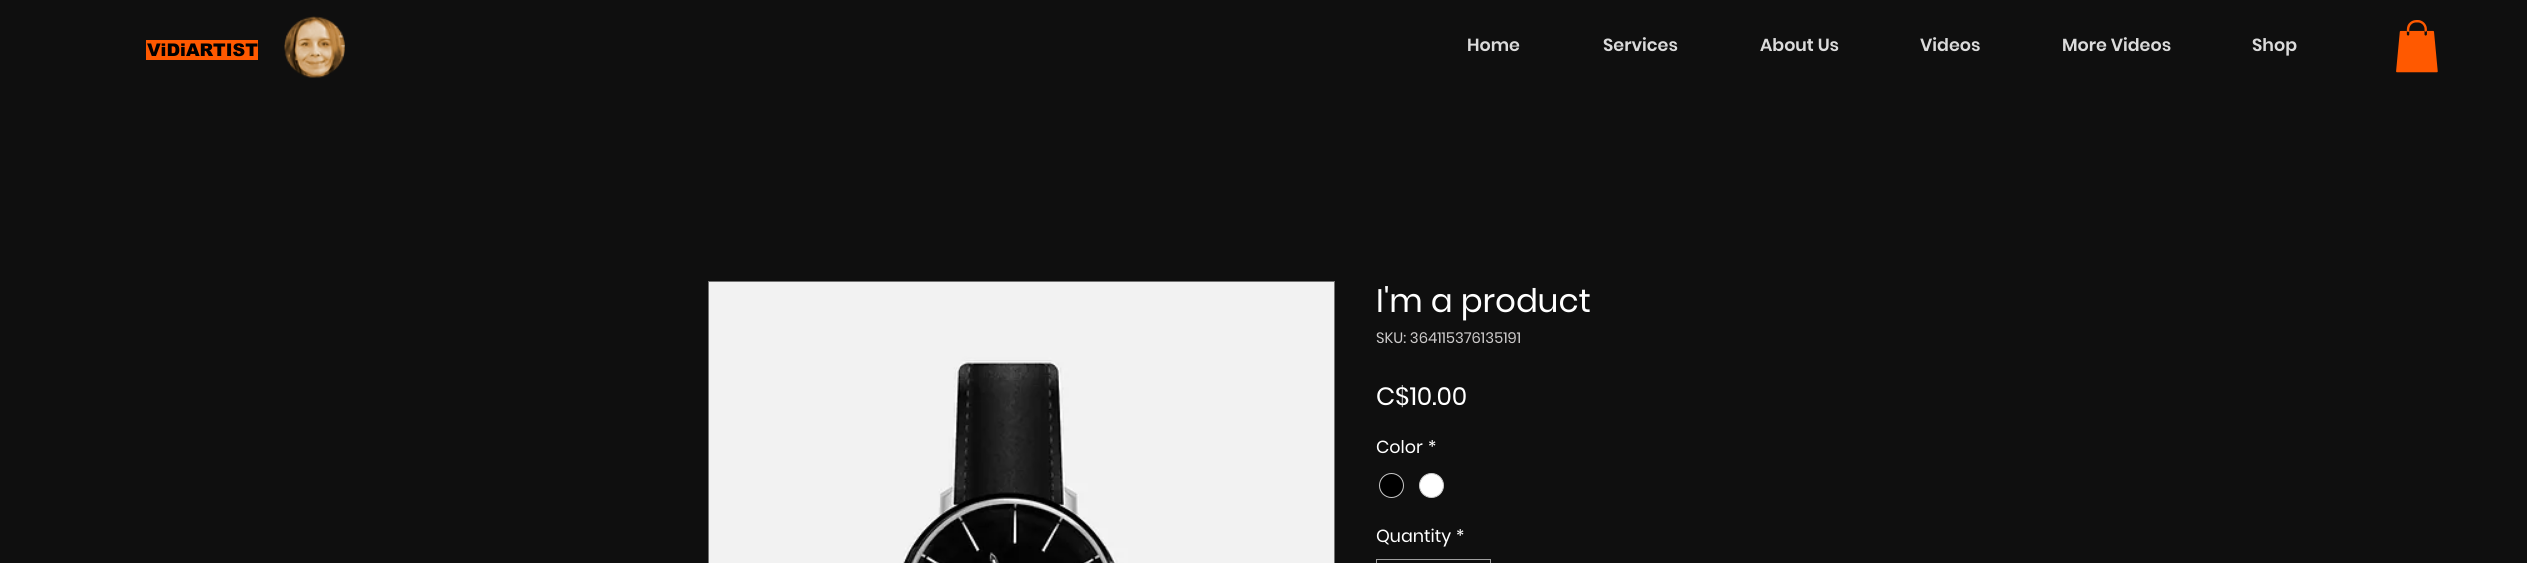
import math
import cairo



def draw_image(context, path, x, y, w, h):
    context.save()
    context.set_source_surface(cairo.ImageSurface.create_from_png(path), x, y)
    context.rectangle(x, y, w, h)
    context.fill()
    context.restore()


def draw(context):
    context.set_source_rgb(15 / 255, 15 / 255, 15 / 255)
    context.paint()
    context.set_source_rgb(1, 89 / 255, 0)
    context.rectangle(146, 40, 112, 20)
    context.fill()
    draw_image(context, "images/1.png", 284, 16, 61, 62)
    draw_image(context, "images/2.png", 2396, 20, 42, 53)
    context.rectangle(708.5, 281.5, 626, 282)
    context.set_source_rgb(115 / 255, 115 / 255, 115 / 255)
    context.set_line_width(1)
    context.stroke()
    draw_image(context, "images/3.png", 709, 282, 625, 281)
    context.set_source_rgb(0, 0, 0)
    context.arc(1391.5, 485.5, 12, 0, 2 * math.pi)
    context.fill_preserve()
    context.set_source_rgb(201 / 255, 201 / 255, 201 / 255)
    context.stroke()
    context.set_source_rgb(1, 1, 1)
    context.arc(1431.5, 485.5, 12, 0, 2 * math.pi)
    context.fill_preserve()
    context.set_source_rgb(201 / 255, 201 / 255, 201 / 255)
    context.stroke()
    context.rectangle(1376.5, 559.5, 114, 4)
    context.set_source_rgb(159 / 255, 159 / 255, 159 / 255)
    context.stroke()
    context.select_font_face("arial Black")
    context.set_font_size(17.5)
    context.set_source_rgb(0, 0, 0)
    context.move_to(147, 56)
    context.show_text("ViDiARTIST")
    context.select_font_face("Poppins SemiBold")
    context.set_source_rgb(219 / 255, 219 / 255, 219 / 255)
    context.move_to(1467, 51)
    context.show_text("Home")
    context.move_to(1603, 51)
    context.show_text("Services")
    context.move_to(1760, 51)
    context.show_text("About Us")
    context.move_to(1920, 51)
    context.show_text("Videos")
    context.move_to(2062, 51)
    context.show_text("More Videos")
    context.move_to(2252, 51)
    context.show_text("Shop")
    context.select_font_face("Poppins")
    context.set_font_size(32.5)
    context.set_source_rgb(1, 1, 1)
    context.move_to(1376, 312)
    context.show_text("I'm a product")
    context.set_font_size(15)
    context.set_source_rgb(204 / 255, 202 / 255, 202 / 255)
    context.move_to(1376, 343)
    context.show_text("SKU: 364115376135191")
    context.set_font_size(25)
    context.set_source_rgb(1, 1, 1)
    context.move_to(1376, 405)
    context.show_text("C$10.00")
    context.set_font_size(17.5)
    context.move_to(1376, 453)
    context.show_text("Color")
    context.move_to(1428, 453)
    context.show_text("*")
    context.move_to(1376, 542)
    context.show_text("Quantity")
    context.move_to(1456, 542)
    context.show_text("*")


surface = cairo.ImageSurface(cairo.Format.RGB24, 2527, 563)
context = cairo.Context(surface)
options = cairo.FontOptions()
options.set_hint_metrics(cairo.HintMetrics.OFF)
options.set_hint_style(cairo.HintStyle.NONE)
context.set_font_options(options)
context.set_miter_limit(4)
draw(context)
surface.write_to_png("out.png")
